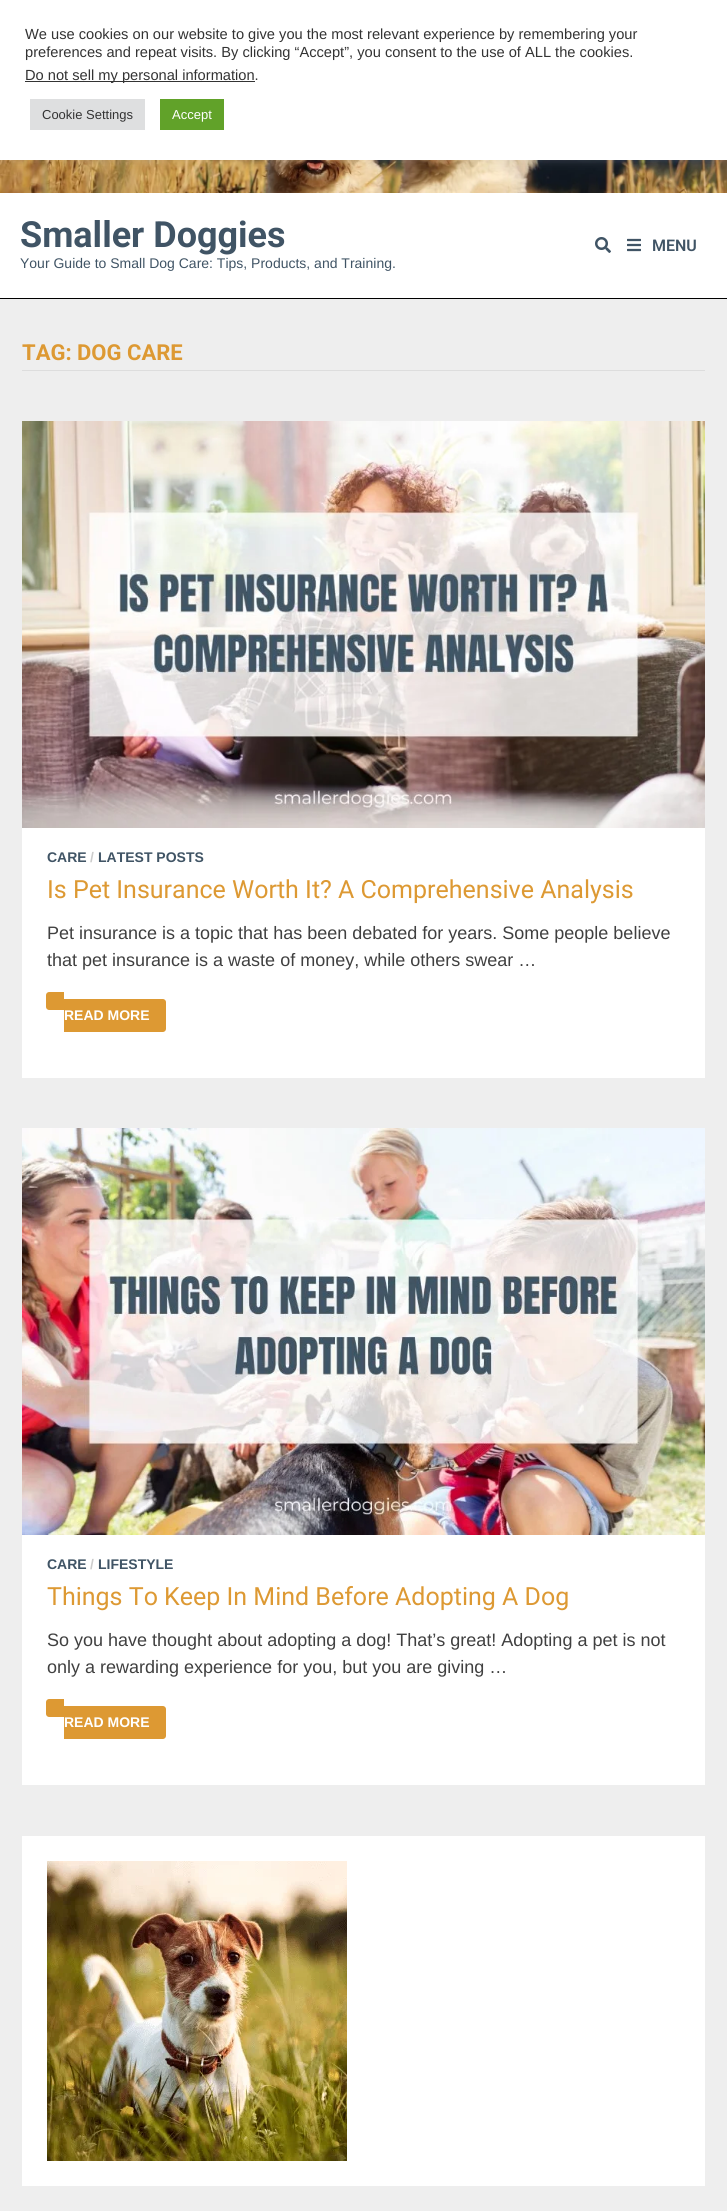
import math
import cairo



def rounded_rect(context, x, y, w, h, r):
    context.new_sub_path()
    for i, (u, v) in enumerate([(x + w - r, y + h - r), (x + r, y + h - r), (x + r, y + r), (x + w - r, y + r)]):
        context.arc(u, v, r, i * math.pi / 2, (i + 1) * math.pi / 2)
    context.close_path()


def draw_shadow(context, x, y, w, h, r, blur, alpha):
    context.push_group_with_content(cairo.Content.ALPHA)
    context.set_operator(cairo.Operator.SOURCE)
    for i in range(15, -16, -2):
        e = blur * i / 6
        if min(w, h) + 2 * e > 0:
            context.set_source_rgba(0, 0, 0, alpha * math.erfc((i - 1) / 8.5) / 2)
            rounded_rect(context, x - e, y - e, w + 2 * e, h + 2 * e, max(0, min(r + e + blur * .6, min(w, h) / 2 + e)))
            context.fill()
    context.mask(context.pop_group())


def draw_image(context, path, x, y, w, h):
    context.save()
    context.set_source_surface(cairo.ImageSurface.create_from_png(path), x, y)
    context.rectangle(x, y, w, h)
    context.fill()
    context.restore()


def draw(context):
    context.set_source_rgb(238 / 255, 238 / 255, 238 / 255)
    context.paint()
    draw_image(context, "images/1.png", 0, 160, 727, 33)
    context.set_source_rgb(172 / 255, 171 / 255, 171 / 255)
    draw_shadow(context, 0, -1, 727, 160, 0, 5, 0.3)
    context.set_source_rgb(1, 1, 1)
    context.rectangle(0, 0, 727, 160)
    context.fill()
    context.set_source_rgb(51 / 255, 51 / 255, 51 / 255)
    context.rectangle(25, 81, 230, 1)
    context.fill()
    context.set_source_rgb(222 / 255, 223 / 255, 224 / 255)
    context.rectangle(30, 99, 115, 31)
    context.fill()
    context.set_source_rgb(97 / 255, 162 / 255, 41 / 255)
    context.rectangle(160, 99, 64, 31)
    context.fill()
    context.set_source_rgb(0, 0, 0)
    context.rectangle(0, 298, 727, 1)
    context.fill()
    context.set_source_rgb(1, 1, 1)
    context.rectangle(0, 193, 727, 105)
    context.fill()
    draw_image(context, "images/2.png", 595, 237, 16, 16)
    draw_image(context, "images/3.png", 627, 238, 14, 14)
    context.set_source_rgb(221 / 255, 221 / 255, 221 / 255)
    context.rectangle(22, 370, 683, 1)
    context.fill()
    context.set_source_rgb(1, 1, 1)
    context.rectangle(22, 828, 683, 250)
    context.fill()
    draw_image(context, "images/4.png", 22, 421, 683, 407)
    context.set_source_rgb(221 / 255, 153 / 255, 51 / 255)
    context.new_path()
    context.move_to(49, 992)
    context.line_to(64, 992)
    context.line_to(64, 1010)
    context.line_to(49, 1010)
    context.curve_to(47.5, 1010, 46, 1008.5, 46, 1007)
    context.line_to(46, 995)
    context.curve_to(46, 993.5, 47.5, 992, 49, 992)
    context.close_path()
    context.fill()
    context.new_path()
    context.move_to(64, 999)
    context.line_to(163, 999)
    context.curve_to(164.5, 999, 166, 1000.5, 166, 1002)
    context.line_to(166, 1029)
    context.curve_to(166, 1030.5, 164.5, 1032, 163, 1032)
    context.line_to(64, 1032)
    context.close_path()
    context.fill()
    context.set_source_rgb(1, 1, 1)
    context.rectangle(22, 1535, 683, 250)
    context.fill()
    draw_image(context, "images/5.png", 22, 1128, 683, 407)
    context.set_source_rgb(221 / 255, 153 / 255, 51 / 255)
    context.new_path()
    context.move_to(49, 1699)
    context.line_to(64, 1699)
    context.line_to(64, 1717)
    context.line_to(49, 1717)
    context.curve_to(47.5, 1717, 46, 1715.5, 46, 1714)
    context.line_to(46, 1702)
    context.curve_to(46, 1700.5, 47.5, 1699, 49, 1699)
    context.close_path()
    context.fill()
    context.new_path()
    context.move_to(64, 1706)
    context.line_to(163, 1706)
    context.curve_to(164.5, 1706, 166, 1707.5, 166, 1709)
    context.line_to(166, 1736)
    context.curve_to(166, 1737.5, 164.5, 1739, 163, 1739)
    context.line_to(64, 1739)
    context.close_path()
    context.fill()
    context.set_source_rgb(1, 1, 1)
    context.rectangle(22, 1836, 683, 350)
    context.fill()
    draw_image(context, "images/6.png", 47, 1861, 300, 300)
    context.select_font_face("Liberation Sans")
    context.set_font_size(14.65)
    context.set_source_rgb(51 / 255, 51 / 255, 51 / 255)
    context.move_to(25, 39)
    context.show_text("We use cookies on our website to give you the most relevant experience by remembering your")
    context.move_to(25, 57)
    context.show_text("preferences and repeat visits. By clicking “Accept”, you consent to the use of ALL the cookies.")
    context.move_to(25, 80)
    context.show_text("Do not sell my personal information.")
    context.set_font_size(13)
    context.move_to(42, 119)
    context.show_text("Cookie Settings")
    context.set_source_rgb(1, 1, 1)
    context.move_to(172, 119)
    context.show_text("Accept")
    context.select_font_face("Roboto", cairo.FontSlant.NORMAL, cairo.FontWeight.BOLD)
    context.set_font_size(36)
    context.set_source_rgb(64 / 255, 84 / 255, 101 / 255)
    context.move_to(20, 247)
    context.show_text("Smaller Doggies")
    context.select_font_face("Liberation Sans")
    context.set_font_size(14)
    context.move_to(20, 268)
    context.show_text("Your Guide to Small Dog Care: Tips, Products, and Training.")
    context.select_font_face("Roboto SemiBold")
    context.set_font_size(16)
    context.move_to(652, 251)
    context.show_text("MENU")
    context.select_font_face("Roboto", cairo.FontSlant.NORMAL, cairo.FontWeight.BOLD)
    context.set_font_size(22)
    context.set_source_rgb(221 / 255, 153 / 255, 51 / 255)
    context.move_to(22, 360)
    context.show_text("TAG: DOG CARE")
    context.select_font_face("Liberation Sans", cairo.FontSlant.NORMAL, cairo.FontWeight.BOLD)
    context.set_font_size(14)
    context.set_source_rgb(64 / 255, 84 / 255, 101 / 255)
    context.move_to(47, 862)
    context.show_text("CARE")
    context.set_source_rgb(204 / 255, 204 / 255, 204 / 255)
    context.move_to(90, 862)
    context.show_text("/")
    context.set_source_rgb(64 / 255, 84 / 255, 101 / 255)
    context.move_to(98, 862)
    context.show_text("LATEST POSTS")
    context.select_font_face("Roboto")
    context.set_font_size(25)
    context.set_source_rgb(221 / 255, 153 / 255, 51 / 255)
    context.move_to(47, 898)
    context.show_text("Is Pet Insurance Worth It? A Comprehensive Analysis")
    context.select_font_face("Liberation Sans")
    context.set_font_size(18)
    context.set_source_rgb(64 / 255, 64 / 255, 64 / 255)
    context.move_to(47, 939)
    context.show_text("Pet insurance is a topic that has been debated for years. Some people believe")
    context.move_to(47, 966)
    context.show_text("that pet insurance is a waste of money, while others swear …")
    context.select_font_face("Liberation Sans", cairo.FontSlant.NORMAL, cairo.FontWeight.BOLD)
    context.set_font_size(14)
    context.set_source_rgb(1, 1, 1)
    context.move_to(64, 1020)
    context.show_text("READ MORE")
    context.set_source_rgb(64 / 255, 84 / 255, 101 / 255)
    context.move_to(47, 1569)
    context.show_text("CARE")
    context.set_source_rgb(204 / 255, 204 / 255, 204 / 255)
    context.move_to(90, 1569)
    context.show_text("/")
    context.set_source_rgb(64 / 255, 84 / 255, 101 / 255)
    context.move_to(98, 1569)
    context.show_text("LIFESTYLE")
    context.select_font_face("Roboto")
    context.set_font_size(25)
    context.set_source_rgb(221 / 255, 153 / 255, 51 / 255)
    context.move_to(47, 1605)
    context.show_text("Things To Keep In Mind Before Adopting A Dog")
    context.select_font_face("Liberation Sans")
    context.set_font_size(18)
    context.set_source_rgb(64 / 255, 64 / 255, 64 / 255)
    context.move_to(47, 1646)
    context.show_text("So you have thought about adopting a dog! That’s great! Adopting a pet is not")
    context.move_to(47, 1673)
    context.show_text("only a rewarding experience for you, but you are giving …")
    context.select_font_face("Liberation Sans", cairo.FontSlant.NORMAL, cairo.FontWeight.BOLD)
    context.set_font_size(14)
    context.set_source_rgb(1, 1, 1)
    context.move_to(64, 1727)
    context.show_text("READ MORE")


surface = cairo.ImageSurface(cairo.Format.RGB24, 727, 2211)
context = cairo.Context(surface)
options = cairo.FontOptions()
options.set_hint_metrics(cairo.HintMetrics.OFF)
options.set_hint_style(cairo.HintStyle.NONE)
context.set_font_options(options)
context.set_miter_limit(4)
draw(context)
surface.write_to_png("out.png")
